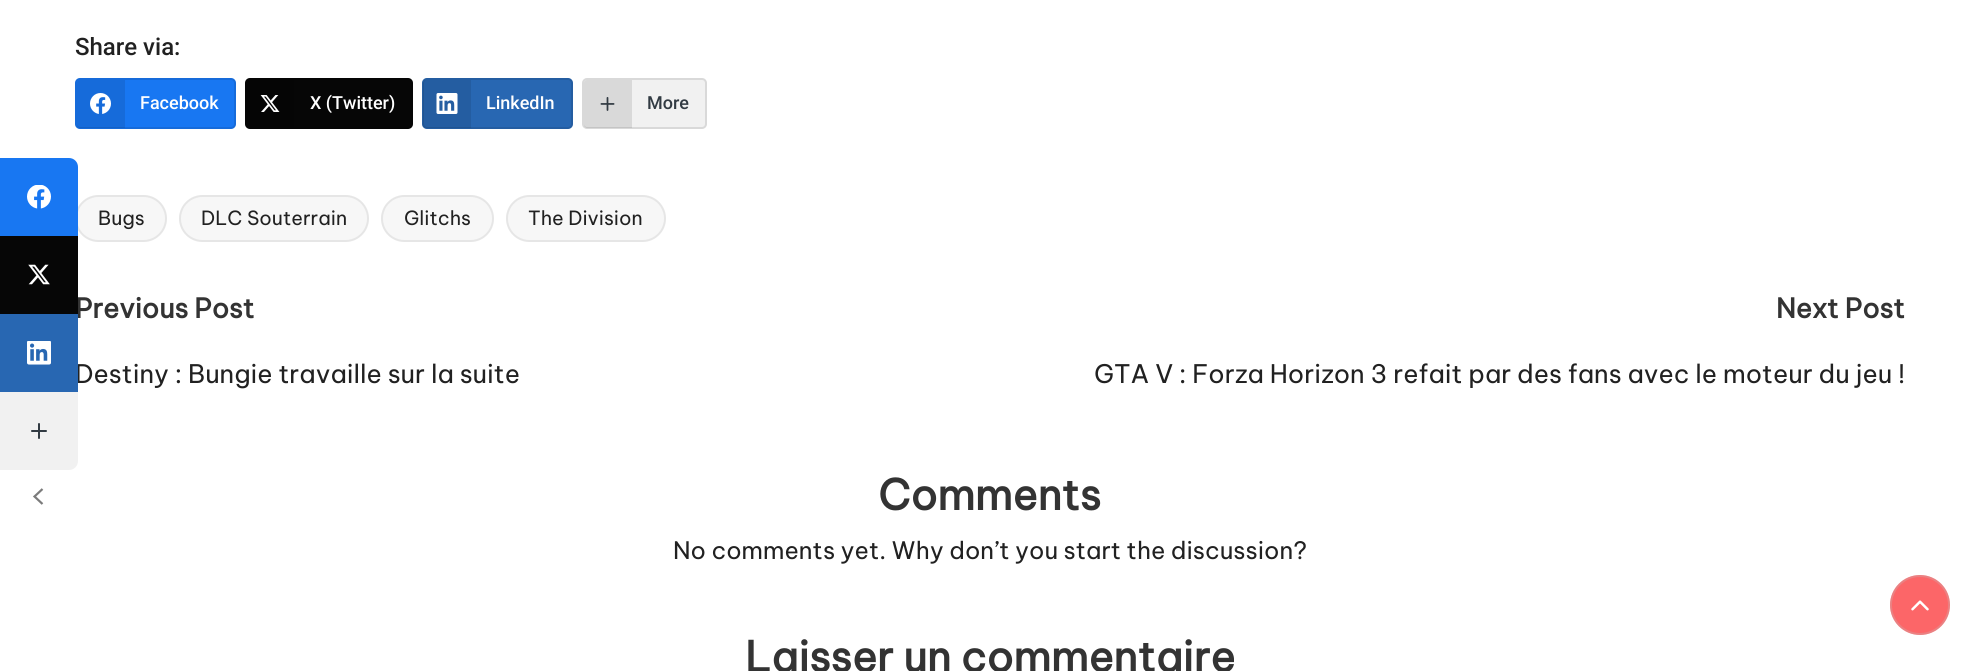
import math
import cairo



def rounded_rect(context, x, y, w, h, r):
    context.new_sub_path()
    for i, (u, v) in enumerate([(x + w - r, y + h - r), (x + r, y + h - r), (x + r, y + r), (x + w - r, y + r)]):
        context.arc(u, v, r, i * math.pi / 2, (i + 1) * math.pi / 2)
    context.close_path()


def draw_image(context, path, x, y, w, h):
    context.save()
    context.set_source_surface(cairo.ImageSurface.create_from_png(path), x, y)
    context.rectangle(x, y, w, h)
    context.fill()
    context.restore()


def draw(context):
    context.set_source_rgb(1, 1, 1)
    context.paint()
    context.set_source_rgb(247 / 255, 247 / 255, 247 / 255)
    rounded_rect(context, 75, 195, 92, 47, 23.5)
    context.fill()
    rounded_rect(context, 76, 196, 90, 45, 22.5)
    context.set_source_rgba(190 / 255, 190 / 255, 190 / 255, 0.3)
    context.stroke()
    context.set_source_rgb(24 / 255, 119 / 255, 242 / 255)
    context.new_path()
    context.move_to(0, 158)
    context.line_to(69, 158)
    context.curve_to(74, 158, 78, 162, 78, 167)
    context.line_to(78, 236)
    context.line_to(0, 236)
    context.close_path()
    context.fill()
    draw_image(context, "images/1.png", 27, 185, 24, 24)
    context.set_source_rgb(241 / 255, 241 / 255, 241 / 255)
    context.new_path()
    context.move_to(0, 392)
    context.line_to(78, 392)
    context.line_to(78, 461)
    context.curve_to(78, 466, 74, 470, 69, 470)
    context.line_to(0, 470)
    context.close_path()
    context.fill()
    draw_image(context, "images/4.png", 31, 423, 16, 16)
    context.new_path()
    context.move_to(42.5, 489)
    context.line_to(34.5, 496.5)
    context.line_to(42.5, 504)
    context.set_source_rgb(123 / 255, 123 / 255, 123 / 255)
    context.set_line_width(2.2)
    context.stroke()
    context.set_source_rgb(24 / 255, 119 / 255, 242 / 255)
    rounded_rect(context, 75, 78, 161, 51, 5)
    context.fill()
    rounded_rect(context, 76, 79, 159, 49, 4)
    context.set_source_rgba(0, 0, 0, 0.1)
    context.set_line_width(2)
    context.stroke()
    context.new_path()
    context.move_to(80, 80)
    context.line_to(125, 80)
    context.line_to(125, 128)
    context.line_to(80, 128)
    context.curve_to(78.5, 128, 77, 126.5, 77, 125)
    context.line_to(77, 83)
    context.curve_to(77, 81.5, 78.5, 80, 80, 80)
    context.close_path()
    context.fill()
    draw_image(context, "images/5.png", 90, 93, 21, 21)
    context.set_source_rgb(6 / 255, 6 / 255, 6 / 255)
    rounded_rect(context, 245, 78, 168, 51, 5)
    context.fill()
    rounded_rect(context, 246, 79, 166, 49, 4)
    context.set_source_rgba(0, 0, 0, 0.1)
    context.stroke()
    context.set_source_rgb(5 / 255, 5 / 255, 5 / 255)
    context.new_path()
    context.move_to(249, 80)
    context.line_to(294, 80)
    context.line_to(294, 128)
    context.line_to(249, 128)
    context.curve_to(247.5, 128, 246, 126.5, 246, 125)
    context.line_to(246, 83)
    context.curve_to(246, 81.5, 247.5, 80, 249, 80)
    context.close_path()
    context.fill()
    draw_image(context, "images/6.png", 260, 95, 20, 17)
    context.set_source_rgb(40 / 255, 103 / 255, 178 / 255)
    rounded_rect(context, 422, 78, 151, 51, 5)
    context.fill()
    rounded_rect(context, 423, 79, 149, 49, 4)
    context.set_source_rgba(0, 0, 0, 0.1)
    context.stroke()
    context.new_path()
    context.move_to(426, 80)
    context.line_to(471, 80)
    context.line_to(471, 128)
    context.line_to(426, 128)
    context.curve_to(424.5, 128, 423, 126.5, 423, 125)
    context.line_to(423, 83)
    context.curve_to(423, 81.5, 424.5, 80, 426, 80)
    context.close_path()
    context.fill()
    draw_image(context, "images/7.png", 436, 93, 22, 21)
    context.set_source_rgb(241 / 255, 241 / 255, 241 / 255)
    rounded_rect(context, 582, 78, 125, 51, 5)
    context.fill()
    rounded_rect(context, 583, 79, 123, 49, 4)
    context.set_source_rgba(0, 0, 0, 0.1)
    context.stroke()
    context.new_path()
    context.move_to(587, 80)
    context.line_to(632, 80)
    context.line_to(632, 128)
    context.line_to(587, 128)
    context.curve_to(585.5, 128, 584, 126.5, 584, 125)
    context.line_to(584, 83)
    context.curve_to(584, 81.5, 585.5, 80, 587, 80)
    context.close_path()
    context.fill()
    draw_image(context, "images/8.png", 600, 97, 15, 14)
    context.set_source_rgb(247 / 255, 247 / 255, 247 / 255)
    rounded_rect(context, 179, 195, 190, 47, 23.5)
    context.fill()
    rounded_rect(context, 180, 196, 188, 45, 22.5)
    context.set_source_rgba(190 / 255, 190 / 255, 190 / 255, 0.3)
    context.stroke()
    context.set_source_rgb(247 / 255, 247 / 255, 247 / 255)
    rounded_rect(context, 381, 195, 113, 47, 23.5)
    context.fill()
    rounded_rect(context, 382, 196, 111, 45, 22.5)
    context.set_source_rgba(190 / 255, 190 / 255, 190 / 255, 0.3)
    context.stroke()
    context.set_source_rgb(247 / 255, 247 / 255, 247 / 255)
    rounded_rect(context, 506, 195, 160, 47, 23.5)
    context.fill()
    rounded_rect(context, 507, 196, 158, 45, 22.5)
    context.set_source_rgba(190 / 255, 190 / 255, 190 / 255, 0.3)
    context.stroke()
    context.set_source_rgb(252 / 255, 102 / 255, 104 / 255)
    context.arc(1920, 605, 30, 0, 2 * math.pi)
    context.fill()
    context.arc(1920, 605, 29, 0, 2 * math.pi)
    context.set_source_rgba(190 / 255, 190 / 255, 190 / 255, 0.3)
    context.stroke()
    draw_image(context, "images/9.png", 1911, 600, 18, 11)
    context.select_font_face("Roboto Medium")
    context.set_font_size(24)
    context.set_source_rgb(33 / 255, 33 / 255, 33 / 255)
    context.move_to(75, 55)
    context.show_text("Share via:")
    context.set_font_size(18)
    context.set_source_rgb(1, 1, 1)
    context.move_to(140, 109)
    context.show_text("Facebook")
    context.move_to(310, 109)
    context.show_text("X (Twitter)")
    context.move_to(486, 109)
    context.show_text("LinkedIn")
    context.set_source_rgb(50 / 255, 59 / 255, 67 / 255)
    context.move_to(647, 109)
    context.show_text("More")
    context.select_font_face("Be Vietnam Pro")
    context.set_font_size(19.5)
    context.set_source_rgb(33 / 255, 33 / 255, 33 / 255)
    context.move_to(98, 225)
    context.show_text("Bugs")
    context.move_to(201, 225)
    context.show_text("DLC Souterrain")
    context.move_to(404, 225)
    context.show_text("Glitchs")
    context.move_to(528, 225)
    context.show_text("The Division")
    context.select_font_face("Be Vietnam Pro", cairo.FontSlant.NORMAL, cairo.FontWeight.BOLD)
    context.set_font_size(27)
    context.set_source_rgb(51 / 255, 51 / 255, 51 / 255)
    context.move_to(75, 318)
    context.show_text("Previous Post")
    context.set_source_rgb(6 / 255, 6 / 255, 6 / 255)
    context.rectangle(0, 236, 78, 78)
    context.fill()
    draw_image(context, "images/2.png", 28, 264, 22, 21)
    context.select_font_face("Be Vietnam Pro")
    context.set_font_size(25.5)
    context.set_source_rgb(33 / 255, 33 / 255, 33 / 255)
    context.move_to(75, 383)
    context.show_text("Destiny : Bungie travaille sur la suite")
    context.set_source_rgb(40 / 255, 103 / 255, 178 / 255)
    context.rectangle(0, 314, 78, 78)
    context.fill()
    draw_image(context, "images/3.png", 27, 341, 24, 24)
    context.select_font_face("Be Vietnam Pro", cairo.FontSlant.NORMAL, cairo.FontWeight.BOLD)
    context.set_font_size(27)
    context.set_source_rgb(51 / 255, 51 / 255, 51 / 255)
    context.move_to(1776, 318)
    context.show_text("Next Post")
    context.select_font_face("Be Vietnam Pro")
    context.set_font_size(25.5)
    context.set_source_rgb(33 / 255, 33 / 255, 33 / 255)
    context.move_to(1094, 383)
    context.show_text("GTA V : Forza Horizon 3 refait par des fans avec le moteur du jeu !")
    context.select_font_face("Be Vietnam Pro", cairo.FontSlant.NORMAL, cairo.FontWeight.BOLD)
    context.set_font_size(42)
    context.set_source_rgb(51 / 255, 51 / 255, 51 / 255)
    context.move_to(878, 510)
    context.show_text("Comments")
    context.select_font_face("Be Vietnam Pro")
    context.set_font_size(24)
    context.set_source_rgb(33 / 255, 33 / 255, 33 / 255)
    context.move_to(673, 559)
    context.show_text("No comments yet. Why don’t you start the discussion?")
    context.select_font_face("Be Vietnam Pro", cairo.FontSlant.NORMAL, cairo.FontWeight.BOLD)
    context.set_font_size(42)
    context.set_source_rgb(51 / 255, 51 / 255, 51 / 255)
    context.move_to(745, 672)
    context.show_text("Laisser un commentaire")


surface = cairo.ImageSurface(cairo.Format.RGB24, 1980, 671)
context = cairo.Context(surface)
options = cairo.FontOptions()
options.set_hint_metrics(cairo.HintMetrics.OFF)
options.set_hint_style(cairo.HintStyle.NONE)
context.set_font_options(options)
context.set_miter_limit(4)
draw(context)
surface.write_to_png("out.png")
